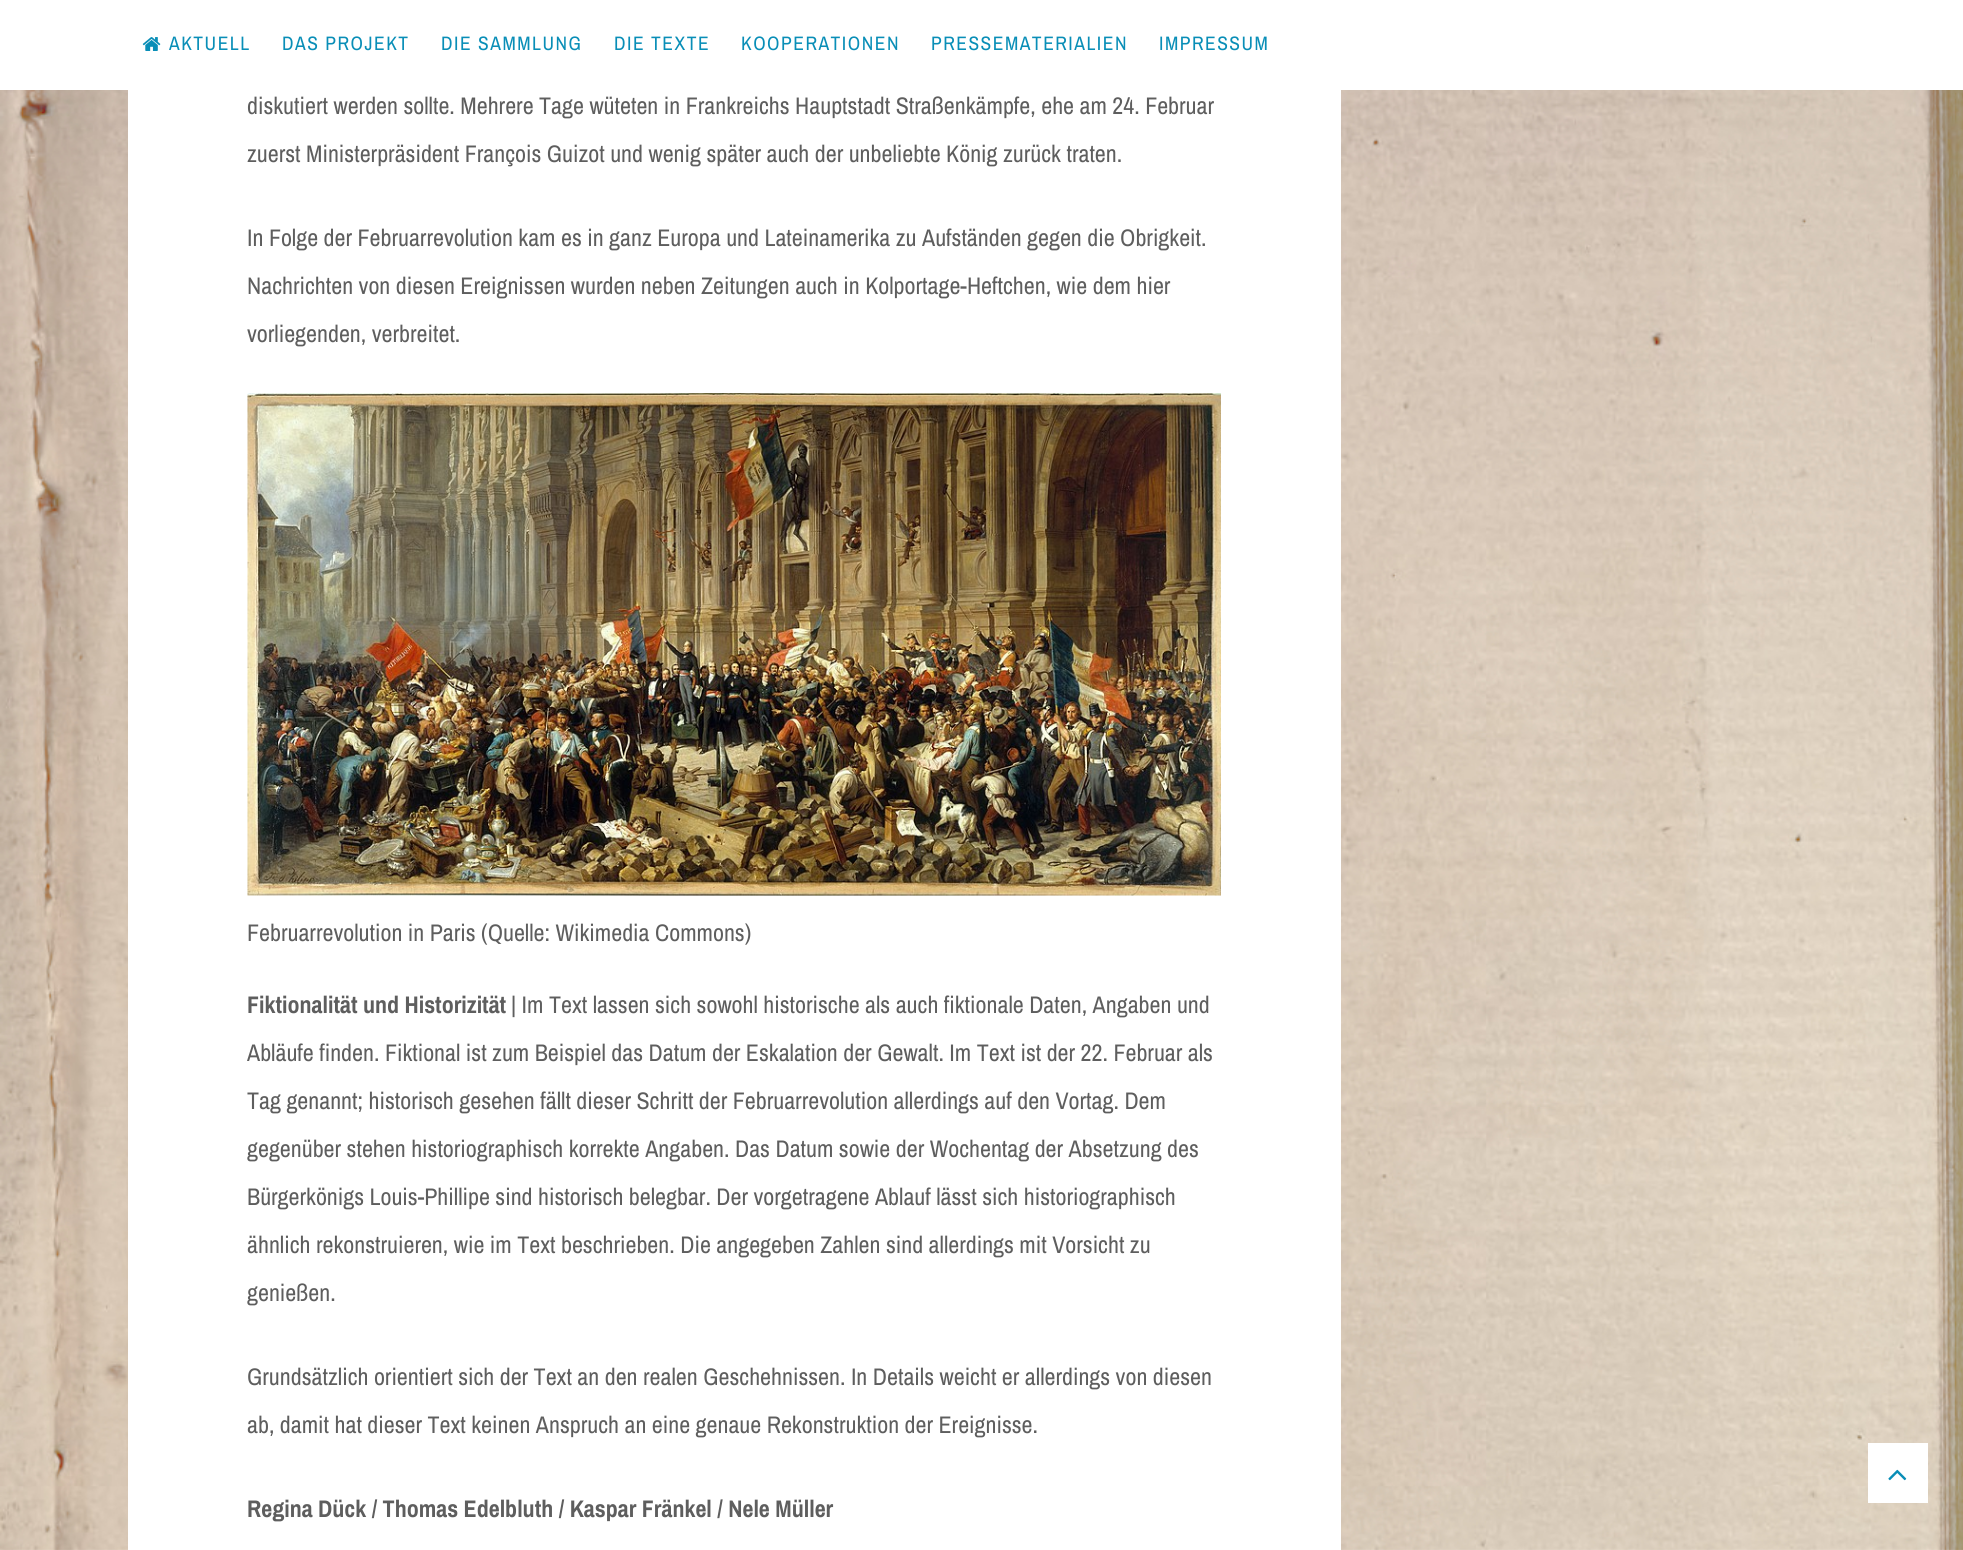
import math
import cairo



def draw_spaced(context, x, y, s, letter, word):
    context.move_to(x, y)
    for ch in s:
        context.show_text(ch)
        context.rel_move_to(letter + word * (ch == ' '), 0)


def draw_image(context, path, x, y, w, h):
    context.save()
    context.set_source_surface(cairo.ImageSurface.create_from_png(path), x, y)
    context.rectangle(x, y, w, h)
    context.fill()
    context.restore()


def draw(context):
    context.set_source_rgb(1, 1, 1)
    context.paint()
    draw_image(context, "images/1.png", 0, 90, 1963, 1460)
    draw_image(context, "images/2.png", 142, 37, 19, 14)
    context.set_source_rgb(1, 1, 1)
    context.rectangle(128, 90, 1213, 1460)
    context.fill()
    draw_image(context, "images/3.png", 247, 393, 974, 503)
    context.rectangle(1868, 1443, 60, 60)
    context.fill()
    draw_image(context, "images/4.png", 1888, 1469, 19, 12)
    context.select_font_face("Archivo Narrow")
    context.set_font_size(19.5)
    context.set_source_rgb(9 / 255, 142 / 255, 183 / 255)
    draw_spaced(context, 169, 50, "AKTUELL", 1.5, 0)
    draw_spaced(context, 282, 50, "DAS PROJEKT", 1.5, 0)
    draw_spaced(context, 441, 50, "DIE SAMMLUNG", 1.5, 0)
    draw_spaced(context, 614, 50, "DIE TEXTE", 1.5, 0)
    draw_spaced(context, 741, 50, "KOOPERATIONEN", 1.5, 0)
    draw_spaced(context, 931, 50, "PRESSEMATERIALIEN", 1.5, 0)
    draw_spaced(context, 1159, 50, "IMPRESSUM", 1.5, 0)
    context.set_font_size(24)
    context.set_source_rgb(94 / 255, 94 / 255, 94 / 255)
    context.move_to(247, 114)
    context.show_text("diskutiert werden sollte. Mehrere Tage wüteten in Frankreichs Hauptstadt Straßenkämpfe, ehe am 24. Februar")
    context.move_to(247, 162)
    context.show_text("zuerst Ministerpräsident François Guizot und wenig später auch der unbeliebte König zurück traten.")
    context.move_to(247, 246)
    context.show_text("In Folge der Februarrevolution kam es in ganz Europa und Lateinamerika zu Aufständen gegen die Obrigkeit.")
    context.move_to(247, 294)
    context.show_text("Nachrichten von diesen Ereignissen wurden neben Zeitungen auch in Kolportage-Heftchen, wie dem hier")
    context.move_to(247, 342)
    context.show_text("vorliegenden, verbreitet.")
    context.move_to(247, 941)
    context.show_text("Februarrevolution in Paris (Quelle: Wikimedia Commons)")
    context.select_font_face("Archivo Narrow", cairo.FontSlant.NORMAL, cairo.FontWeight.BOLD)
    context.move_to(247, 1013)
    context.show_text("Fiktionalität und Historizität")
    context.select_font_face("Archivo Narrow")
    context.move_to(511, 1013)
    context.show_text("| Im Text lassen sich sowohl historische als auch fiktionale Daten, Angaben und")
    context.move_to(247, 1061)
    context.show_text("Abläufe finden. Fiktional ist zum Beispiel das Datum der Eskalation der Gewalt. Im Text ist der 22. Februar als")
    context.move_to(247, 1109)
    context.show_text("Tag genannt; historisch gesehen fällt dieser Schritt der Februarrevolution allerdings auf den Vortag. Dem")
    context.move_to(247, 1157)
    context.show_text("gegenüber stehen historiographisch korrekte Angaben. Das Datum sowie der Wochentag der Absetzung des")
    context.move_to(247, 1205)
    context.show_text("Bürgerkönigs Louis-Phillipe sind historisch belegbar. Der vorgetragene Ablauf lässt sich historiographisch")
    context.move_to(247, 1253)
    context.show_text("ähnlich rekonstruieren, wie im Text beschrieben. Die angegeben Zahlen sind allerdings mit Vorsicht zu")
    context.move_to(247, 1301)
    context.show_text("genießen.")
    context.move_to(247, 1385)
    context.show_text("Grundsätzlich orientiert sich der Text an den realen Geschehnissen. In Details weicht er allerdings von diesen")
    context.move_to(247, 1433)
    context.show_text("ab, damit hat dieser Text keinen Anspruch an eine genaue Rekonstruktion der Ereignisse.")
    context.select_font_face("Archivo Narrow", cairo.FontSlant.NORMAL, cairo.FontWeight.BOLD)
    context.move_to(247, 1517)
    context.show_text("Regina Dück / Thomas Edelbluth / Kaspar Fränkel / Nele Müller")


surface = cairo.ImageSurface(cairo.Format.RGB24, 1963, 1550)
context = cairo.Context(surface)
options = cairo.FontOptions()
options.set_hint_metrics(cairo.HintMetrics.OFF)
options.set_hint_style(cairo.HintStyle.NONE)
context.set_font_options(options)
context.set_miter_limit(4)
draw(context)
surface.write_to_png("out.png")
